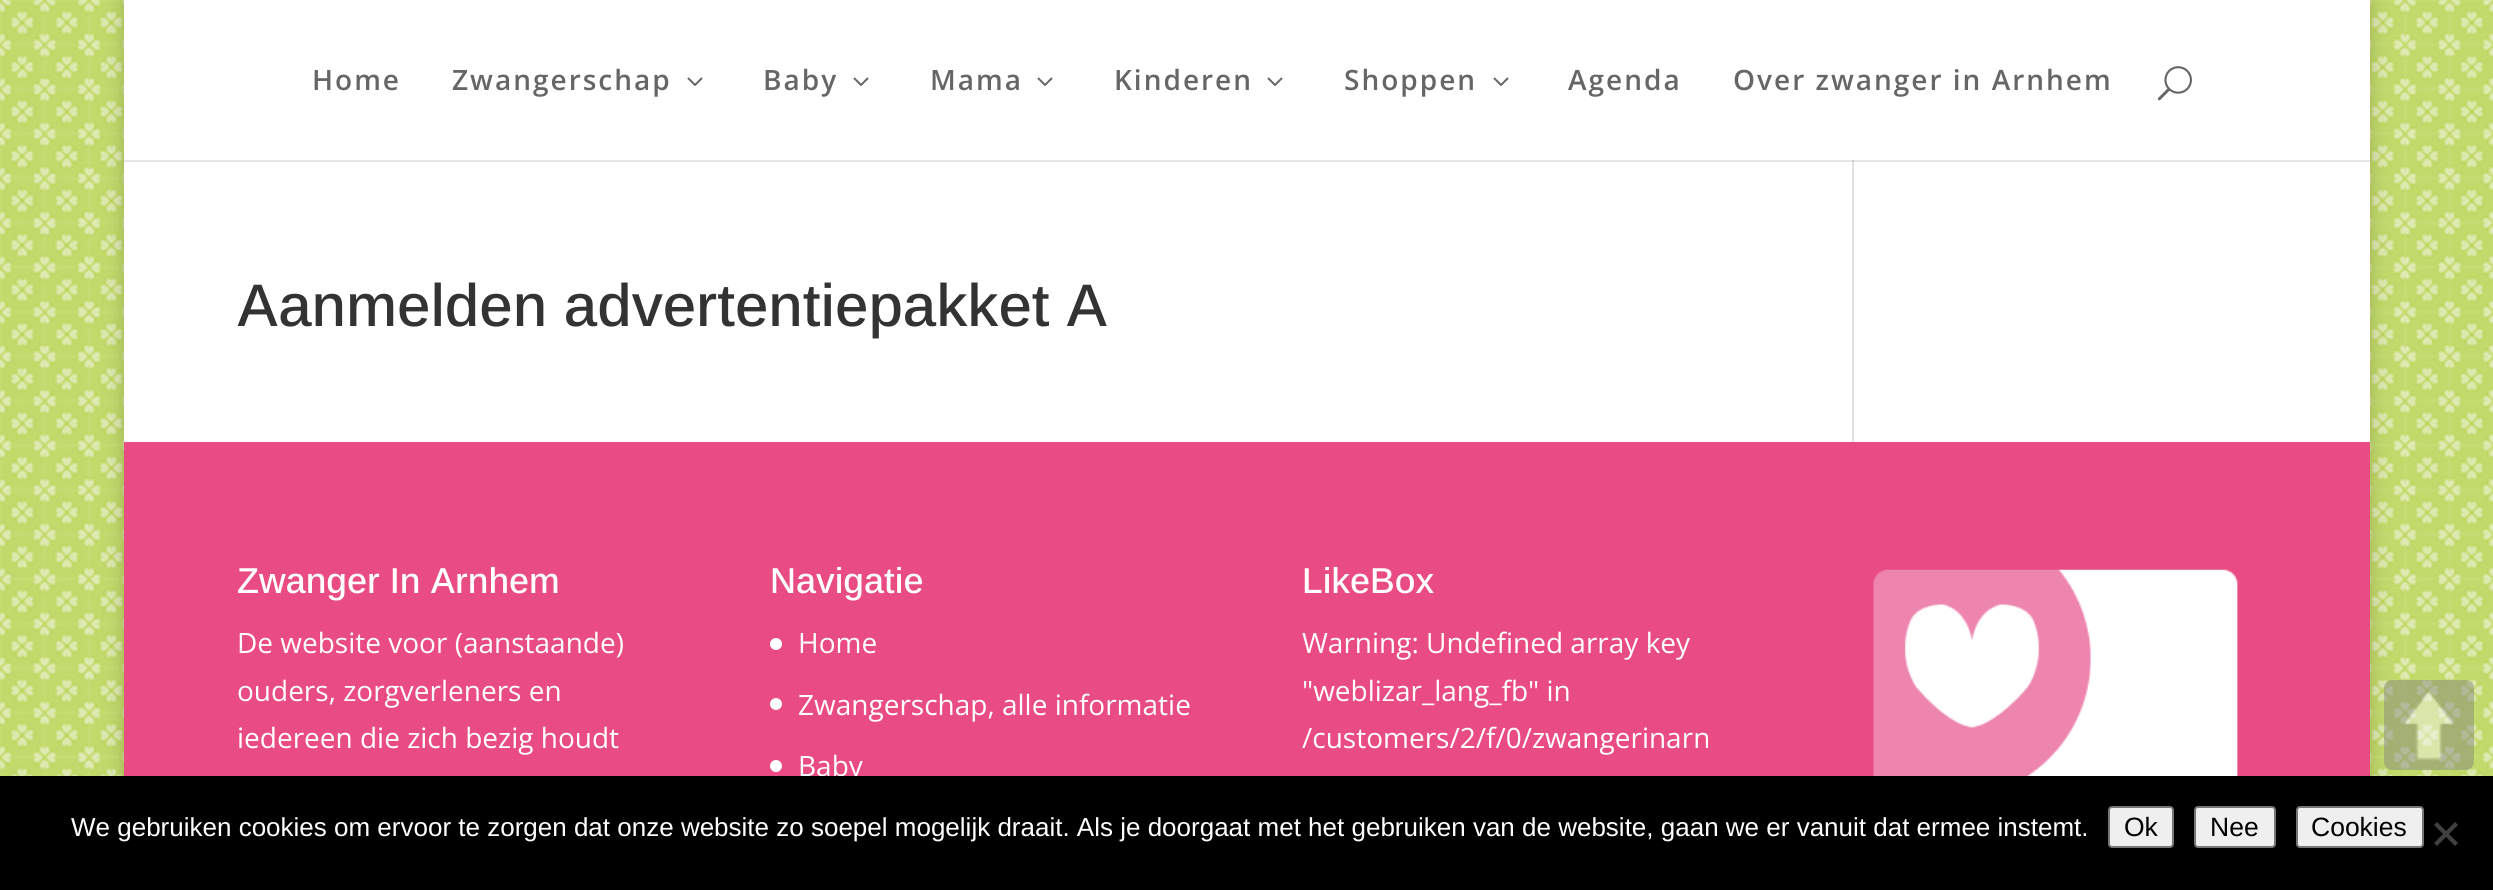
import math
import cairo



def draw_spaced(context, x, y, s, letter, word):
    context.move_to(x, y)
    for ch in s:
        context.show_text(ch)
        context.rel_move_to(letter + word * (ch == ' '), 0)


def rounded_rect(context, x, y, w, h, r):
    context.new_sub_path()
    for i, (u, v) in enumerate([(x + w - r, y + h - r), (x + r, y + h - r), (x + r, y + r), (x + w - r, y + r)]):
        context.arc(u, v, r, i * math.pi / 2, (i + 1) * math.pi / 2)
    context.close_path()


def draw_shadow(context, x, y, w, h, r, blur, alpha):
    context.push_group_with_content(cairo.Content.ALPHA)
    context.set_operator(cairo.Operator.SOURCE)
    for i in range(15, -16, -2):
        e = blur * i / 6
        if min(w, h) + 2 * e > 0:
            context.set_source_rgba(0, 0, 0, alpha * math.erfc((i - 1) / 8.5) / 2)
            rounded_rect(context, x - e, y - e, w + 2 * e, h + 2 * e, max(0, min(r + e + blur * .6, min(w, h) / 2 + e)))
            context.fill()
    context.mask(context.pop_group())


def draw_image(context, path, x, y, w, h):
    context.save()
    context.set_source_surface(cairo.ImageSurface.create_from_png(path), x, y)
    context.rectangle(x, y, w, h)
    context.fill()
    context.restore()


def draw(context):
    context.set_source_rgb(1, 1, 1)
    context.paint()
    draw_image(context, "images/1.png", 0, 0, 2493, 776)
    context.set_source_rgb(0, 0, 0)
    draw_shadow(context, 124, 0, 2246, 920, 0, 10, 0.2)
    context.set_source_rgb(1, 1, 1)
    context.rectangle(124, 0, 2246, 442)
    context.fill()
    context.set_source_rgb(226 / 255, 226 / 255, 226 / 255)
    context.rectangle(1852, 160, 2, 282)
    context.fill()
    context.set_source_rgba(0, 0, 0, 0.1)
    context.rectangle(124, 160, 2246, 2)
    context.fill()
    draw_image(context, "images/2.png", 687, 77, 16, 9)
    draw_image(context, "images/2.png", 853, 77, 16, 9)
    draw_image(context, "images/2.png", 1037, 77, 16, 9)
    draw_image(context, "images/2.png", 1267, 77, 16, 9)
    draw_image(context, "images/2.png", 1493, 77, 16, 9)
    draw_image(context, "images/3.png", 2157, 66, 35, 35)
    context.set_source_rgb(233 / 255, 75 / 255, 131 / 255)
    context.rectangle(124, 442, 2246, 334)
    context.fill()
    context.set_source_rgb(1, 1, 1)
    context.arc(776, 644, 6, 0, 2 * math.pi)
    context.fill()
    context.arc(776, 704, 6, 0, 2 * math.pi)
    context.fill()
    context.arc(776, 766, 6, 0, 2 * math.pi)
    context.fill()
    draw_image(context, "images/4.png", 1873, 569, 365, 207)
    context.set_source_rgba(239 / 255, 239 / 255, 239 / 255, 0.3)
    rounded_rect(context, 2384, 680, 90, 90, 8)
    context.fill()
    draw_image(context, "images/5.png", 2384, 680, 90, 90)
    context.select_font_face("Open Sans SemiBold")
    context.set_font_size(28)
    context.set_source_rgb(102 / 255, 102 / 255, 102 / 255)
    draw_spaced(context, 312, 90, "Home", 2, 0)
    draw_spaced(context, 452, 90, "Zwangerschap", 2, 0)
    draw_spaced(context, 763, 90, "Baby", 2, 0)
    draw_spaced(context, 930, 90, "Mama", 2, 0)
    draw_spaced(context, 1114, 90, "Kinderen", 2, 0)
    draw_spaced(context, 1344, 90, "Shoppen", 2, 0)
    draw_spaced(context, 1568, 90, "Agenda", 2, 0)
    draw_spaced(context, 1733, 90, "Over zwanger in Arnhem", 2, 0)
    context.select_font_face("Arimo Medium")
    context.set_font_size(60)
    context.set_source_rgb(51 / 255, 51 / 255, 51 / 255)
    context.move_to(237, 326)
    context.show_text("Aanmelden advertentiepakket A")
    context.set_font_size(36)
    context.set_source_rgb(1, 1, 1)
    context.move_to(237, 593)
    context.show_text("Zwanger In Arnhem")
    context.select_font_face("Open Sans")
    context.set_font_size(28)
    context.move_to(237, 653)
    context.show_text("De website voor (aanstaande)")
    context.move_to(237, 701)
    context.show_text("ouders, zorgverleners en")
    context.move_to(237, 748)
    context.show_text("iedereen die zich bezig houdt")
    context.select_font_face("Arimo Medium")
    context.set_font_size(36)
    context.move_to(770, 593)
    context.show_text("Navigatie")
    context.select_font_face("Open Sans")
    context.set_font_size(28)
    context.move_to(798, 653)
    context.show_text("Home")
    context.move_to(798, 715)
    context.show_text("Zwangerschap, alle informatie")
    context.move_to(798, 776)
    context.show_text("Baby")
    context.select_font_face("Arimo Medium")
    context.set_font_size(36)
    context.move_to(1302, 593)
    context.show_text("LikeBox")
    context.select_font_face("Open Sans")
    context.set_font_size(28)
    context.move_to(1302, 653)
    context.show_text("Warning: Undefined array key")
    context.move_to(1302, 701)
    context.show_text("\"weblizar_lang_fb\" in")
    context.move_to(1302, 748)
    context.show_text("/customers/2/f/0/zwangerinarn")
    context.set_source_rgb(0, 0, 0)
    context.rectangle(0, 776, 2493, 114)
    context.fill()
    context.select_font_face("Liberation Sans")
    context.set_font_size(26)
    context.set_source_rgb(1, 1, 1)
    context.move_to(71, 836)
    context.show_text("We gebruiken cookies om ervoor te zorgen dat onze website zo soepel mogelijk draait. Als je doorgaat met het gebruiken van de website, gaan we er vanuit dat ermee instemt.")
    context.set_source_rgb(239 / 255, 239 / 255, 239 / 255)
    rounded_rect(context, 2109, 807, 64, 40, 3)
    context.fill_preserve()
    context.set_source_rgb(118 / 255, 118 / 255, 118 / 255)
    context.stroke()
    context.set_font_size(26.5)
    context.set_source_rgb(0, 0, 0)
    context.move_to(2124, 836)
    context.show_text("Ok")
    context.set_source_rgb(239 / 255, 239 / 255, 239 / 255)
    rounded_rect(context, 2195, 807, 80, 40, 3)
    context.fill_preserve()
    context.set_source_rgb(118 / 255, 118 / 255, 118 / 255)
    context.stroke()
    context.set_source_rgb(0, 0, 0)
    context.move_to(2210, 836)
    context.show_text("Nee")
    context.set_source_rgb(239 / 255, 239 / 255, 239 / 255)
    rounded_rect(context, 2297, 807, 126, 40, 3)
    context.fill_preserve()
    context.set_source_rgb(118 / 255, 118 / 255, 118 / 255)
    context.stroke()
    context.set_source_rgb(0, 0, 0)
    context.move_to(2311, 836)
    context.show_text("Cookies")
    context.set_source_rgb(64 / 255, 64 / 255, 64 / 255)
    context.new_path()
    context.move_to(2455, 822)
    context.line_to(2458, 825)
    context.line_to(2437, 846)
    context.line_to(2434, 843)
    context.close_path()
    context.fill()
    context.new_path()
    context.move_to(2434, 825)
    context.line_to(2437, 822)
    context.line_to(2458, 843)
    context.line_to(2455, 846)
    context.close_path()
    context.fill()


surface = cairo.ImageSurface(cairo.Format.RGB24, 2493, 890)
context = cairo.Context(surface)
options = cairo.FontOptions()
options.set_hint_metrics(cairo.HintMetrics.OFF)
options.set_hint_style(cairo.HintStyle.NONE)
context.set_font_options(options)
context.set_miter_limit(4)
draw(context)
surface.write_to_png("out.png")
